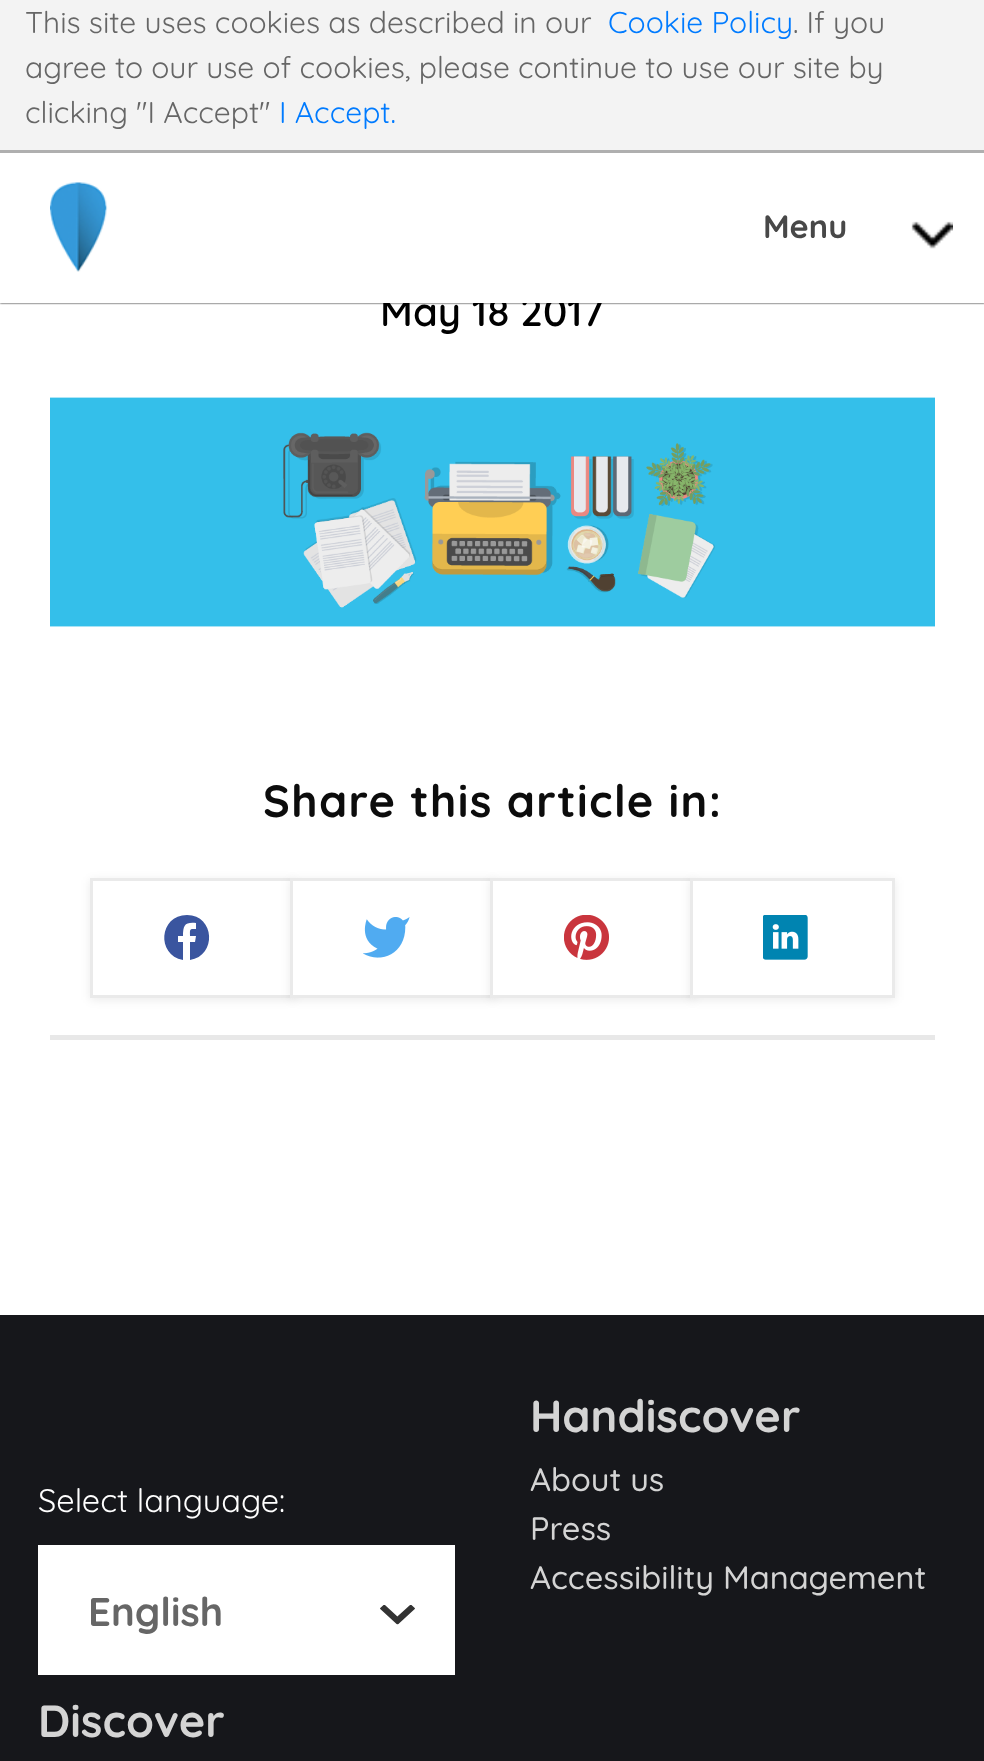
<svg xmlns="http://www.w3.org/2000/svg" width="984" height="1761">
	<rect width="100%" height="100%" fill="#FFFFFF" />
	<rect x="0" y="0" width="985" height="303" fill="#000000" filter="blur(1px)" />
	<text x="380" y="326" font-family="Quicksand" font-size="40" font-weight="600" fill="#000000">May 18 2017</text>
	<rect x="0" y="153" width="984" height="150" fill="#FFFFFF" />
	<rect x="0" y="0" width="984" height="150" fill="#F3F3F3" />
	<rect x="0" y="150" width="984" height="3" fill="#AFAFAF" />
	<text x="25" y="33" font-family="Quicksand" font-size="30" fill="#666666">This site uses cookies as described in our</text>
	<text x="608" y="33" font-family="Quicksand" font-size="30" fill="#007BFF">Cookie Policy</text>
	<g font-family="Quicksand" font-size="30" fill="#666666">
		<text x="793" y="33">. If you</text>
		<text x="25" y="78">agree to our use of cookies, please continue to use our site by</text>
		<text x="25" y="123">clicking "I Accept"</text>
	</g>
	<text x="279" y="123" font-family="Quicksand" font-size="30" fill="#007BFF">I Accept.</text>
	<image x="50" y="182" width="58" height="90" href="assets/img1.png" />
	<text x="763" y="238" font-family="Quicksand" font-size="32.5" font-weight="700" fill="#484848">Menu</text>
	<image x="911" y="221" width="42" height="28" href="assets/img2.png" />
	<image x="50" y="397" width="885" height="230" href="assets/img3.png" />
	<text x="263" y="817" font-family="Quicksand" font-size="45" font-weight="700" letter-spacing="1.35" fill="#0C0C0C">Share this article in:</text>
	<rect x="90" y="880" width="205" height="120" fill="#000000" fill-opacity="0.08" filter="blur(5px)" />
	<rect x="93" y="881" width="197" height="114" fill="#FFFFFF" />
	<path d="M187 915C159 915 156 955 183 960V942H178V936H183C183 925 185 922 196 923V929C189 929 190 929 190 936H196L195 942H190V960C217 956 215 915 187 915Z" fill="#3A559F" />
	<rect x="91.5" y="879.5" width="202" height="117" fill="none" stroke="#EAEAEA" stroke-width="3" />
	<rect x="290" y="880" width="205" height="120" fill="#000000" fill-opacity="0.08" filter="blur(5px)" />
	<rect x="293" y="881" width="197" height="114" fill="#FFFFFF" />
	<image x="363" y="917" width="47" height="41" href="assets/img4.png" />
	<rect x="291.5" y="879.5" width="202" height="117" fill="none" stroke="#EAEAEA" stroke-width="3" />
	<rect x="490" y="880" width="205" height="120" fill="#000000" fill-opacity="0.08" filter="blur(5px)" />
	<rect x="493" y="881" width="197" height="114" fill="#FFFFFF" />
	<image x="564" y="915" width="45" height="45" href="assets/img5.png" />
	<rect x="491.5" y="879.5" width="202" height="117" fill="none" stroke="#EAEAEA" stroke-width="3" />
	<rect x="690" y="880" width="205" height="120" fill="#000000" fill-opacity="0.08" filter="blur(5px)" />
	<rect x="693" y="881" width="199" height="114" fill="#FFFFFF" />
	<image x="763" y="915" width="45" height="45" href="assets/img6.png" />
	<rect x="691.5" y="879.5" width="202" height="117" fill="none" stroke="#EAEAEA" stroke-width="3" />
	<rect x="50" y="1035" width="885" height="5" fill="#E8E8E8" />
	<rect x="0" y="1315" width="984" height="446" fill="#16171B" />
	<text x="38" y="1512" font-family="Quicksand" font-size="32.5" fill="#FFFFFF">Select language:</text>
	<rect x="38" y="1545" width="417" height="130" fill="#FFFFFF" />
	<text x="88" y="1626" font-family="Quicksand" font-size="40" font-weight="700" fill="#666666">English</text>
	<image x="380" y="1605" width="35" height="20" href="assets/img7.png" />
	<text x="530" y="1432" font-family="Quicksand" font-size="45" font-weight="700" fill="#D4D4D4">Handiscover</text>
	<g font-family="Quicksand" font-size="32.5" font-weight="500" fill="#D4D4D4">
		<text x="530" y="1491">About us</text>
		<text x="530" y="1540">Press</text>
		<text x="530" y="1589">Accessibility Management</text>
	</g>
	<text x="38" y="1737" font-family="Quicksand" font-size="45" font-weight="700" fill="#D4D4D4">Discover</text>
</svg>
